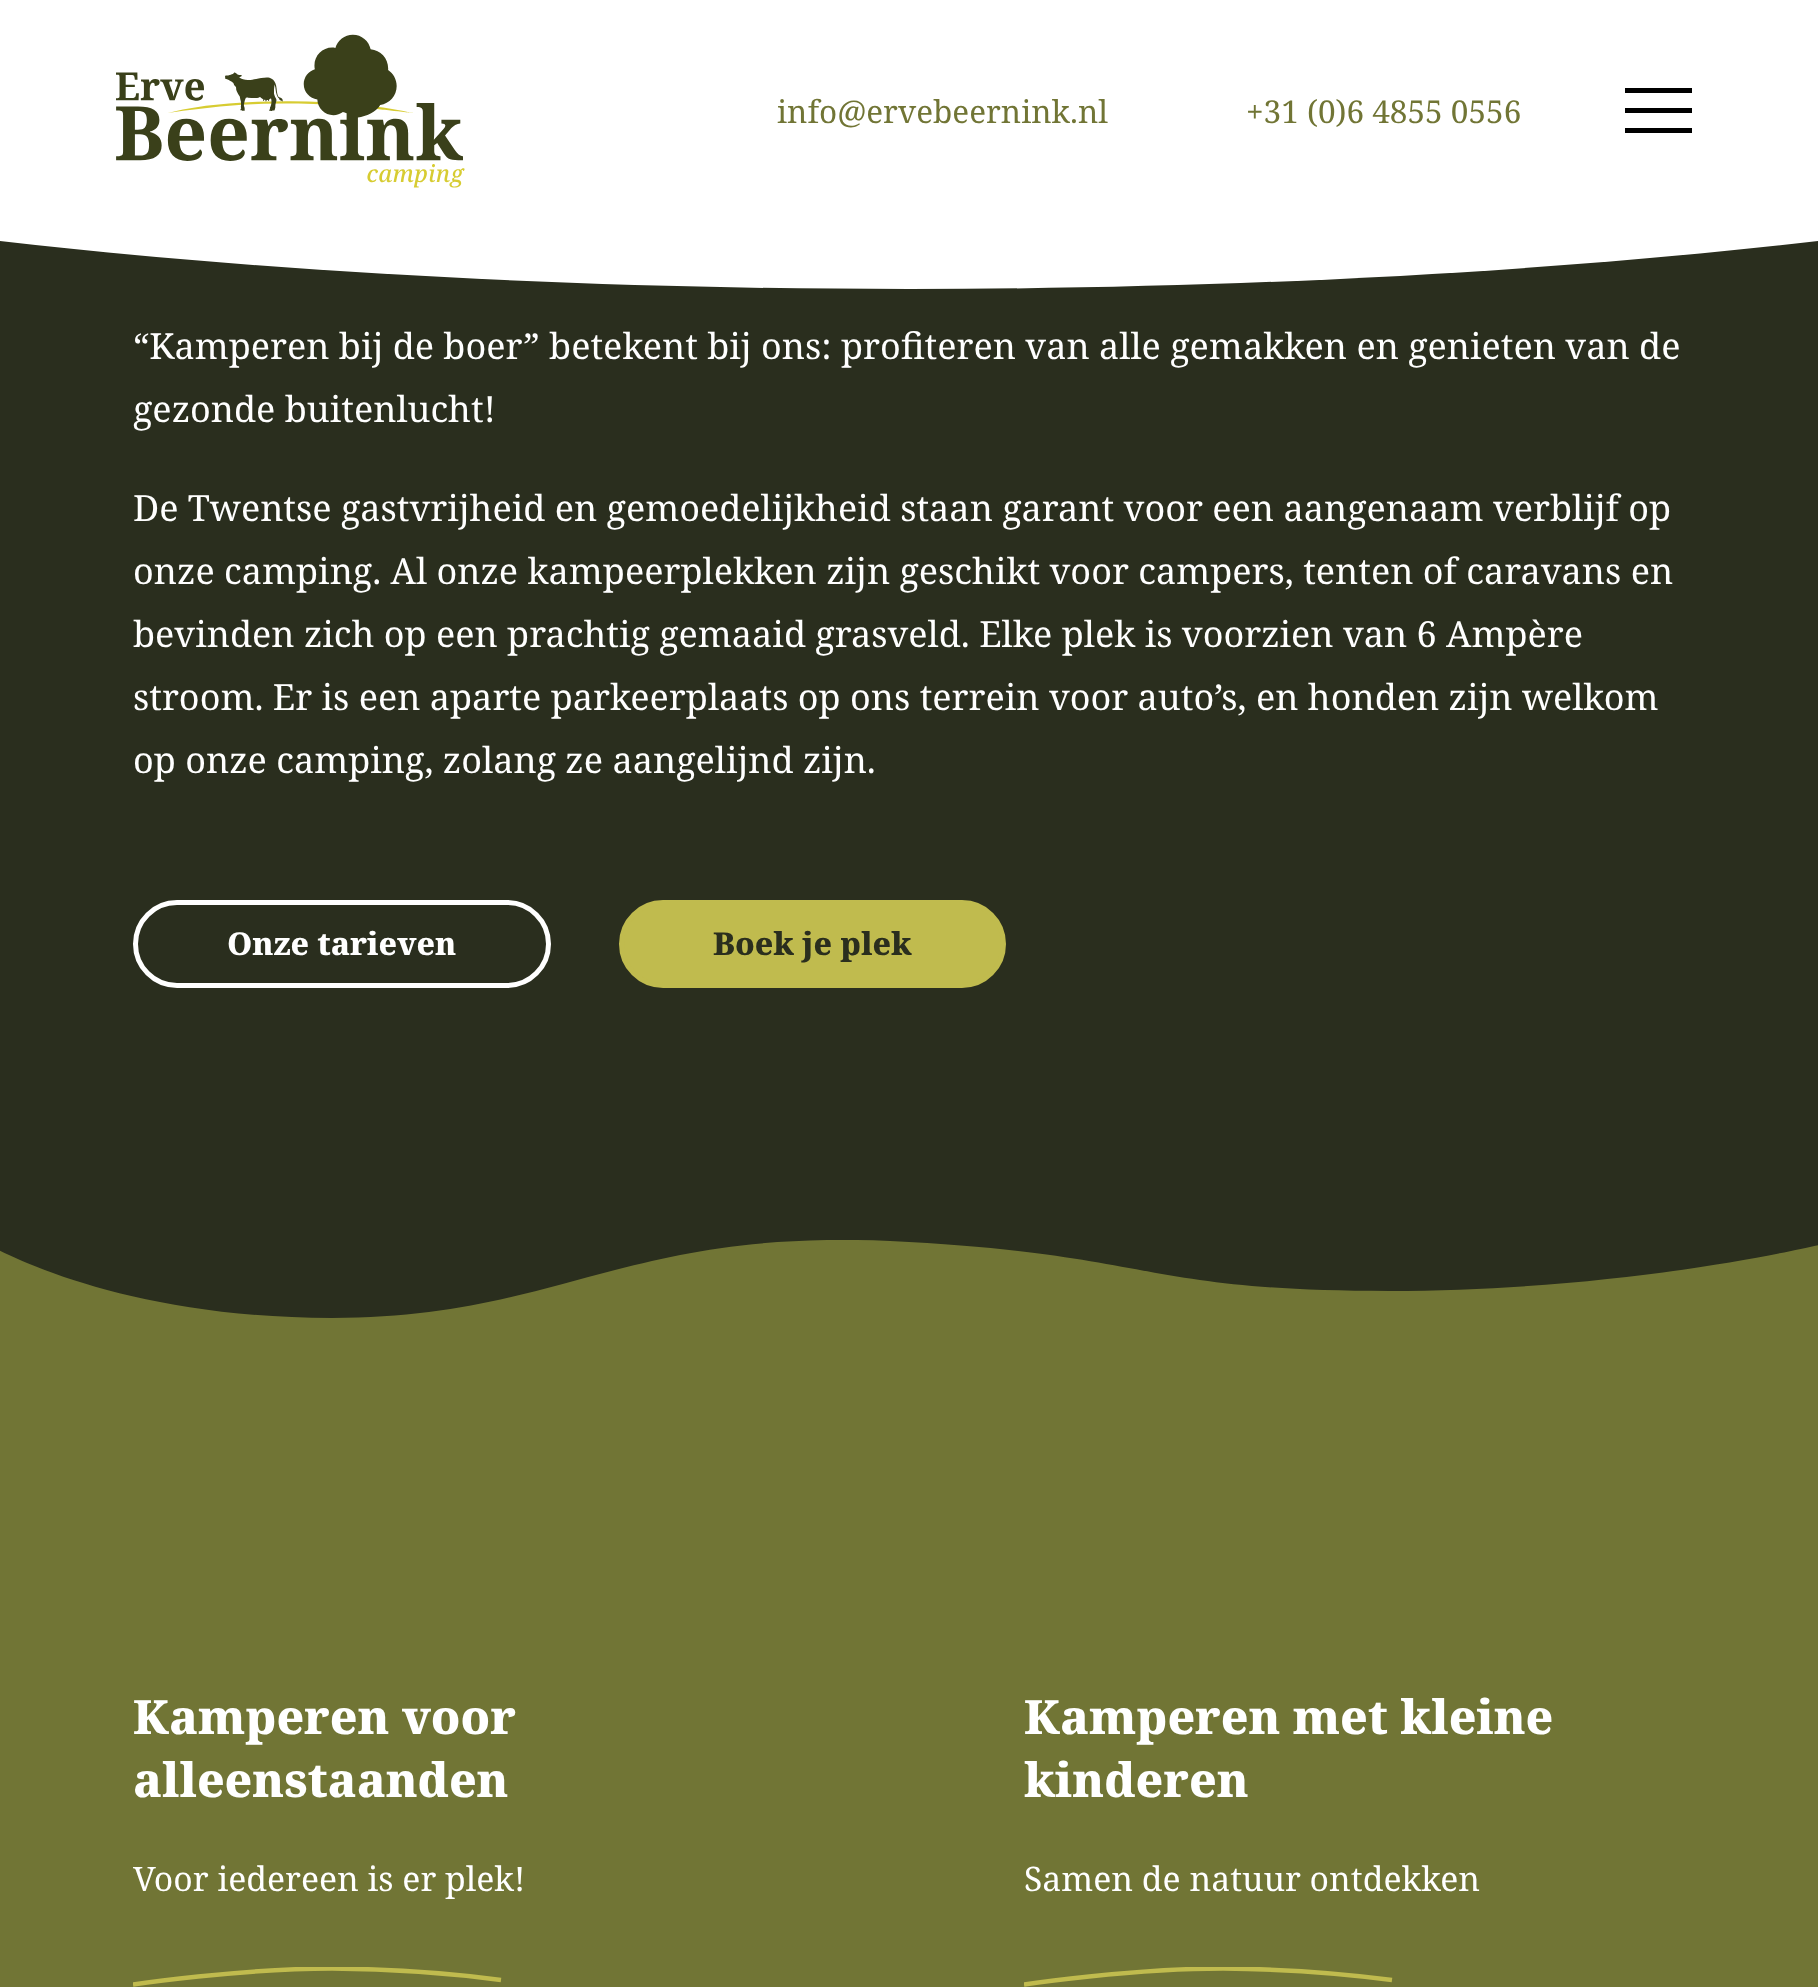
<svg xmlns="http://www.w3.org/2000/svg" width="1818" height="1987">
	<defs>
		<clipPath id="clip1"><rect x="0" y="1240" width="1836" height="108" /></clipPath>
		<clipPath id="clip2"><rect x="133" y="1967" width="369" height="20" /></clipPath>
		<clipPath id="clip3"><rect x="1024" y="1967" width="369" height="20" /></clipPath>
	</defs>
	<rect width="100%" height="100%" fill="#2A2E1E" />
	<path d="M0 0H1818V241C1558 271 1245 289 909 289C573 289 260 271 0 241Z" fill="#FFFFFF" />
	<image x="116" y="34" width="349" height="154" href="assets/img1.png" />
	<g font-family="Noto Serif" font-size="31.5" fill="#717535">
		<text x="777" y="123">info@ervebeernink.nl</text>
		<text x="1246" y="123">+31 (0)6 4855 0556</text>
	</g>
	<rect x="1625" y="88" width="67" height="5" fill="#000000" />
	<rect x="1625" y="108" width="67" height="5" fill="#000000" />
	<rect x="1625" y="128" width="67" height="5" fill="#000000" />
	<g font-family="Noto Serif" font-size="36" fill="#FFFFFF">
		<text x="133" y="359">“Kamperen bij de boer” betekent bij ons: profiteren van alle gemakken en genieten van de</text>
		<text x="133" y="422">gezonde buitenlucht!</text>
		<text x="133" y="521">De Twentse gastvrijheid en gemoedelijkheid staan garant voor een aangenaam verblijf op</text>
		<text x="133" y="584">onze camping. Al onze kampeerplekken zijn geschikt voor campers, tenten of caravans en</text>
		<text x="133" y="647">bevinden zich op een prachtig gemaaid grasveld. Elke plek is voorzien van 6 Ampère</text>
		<text x="133" y="710">stroom. Er is een aparte parkeerplaats op ons terrein voor auto’s, en honden zijn welkom</text>
		<text x="133" y="773">op onze camping, zolang ze aangelijnd zijn.</text>
	</g>
	<rect x="135.5" y="902.5" width="413" height="83" rx="41.5" fill="none" stroke="#FFFFFF" stroke-width="5" />
	<text x="227" y="955" font-family="Noto Serif" font-size="31.5" font-weight="800" fill="#FFFFFF">Onze tarieven</text>
	<rect x="621.5" y="902.5" width="382" height="83" rx="41.5" fill="#C0BB4E" stroke="#C0BB4E" stroke-width="5" />
	<text x="713" y="955" font-family="Noto Serif" font-size="31.5" font-weight="800" fill="#2A2E1E">Boek je plek</text>
	<rect x="0" y="1348" width="1818" height="639" fill="#717535" />
	<g clip-path="url(#clip1)">
		<path d="M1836 1349H-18V1241C-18 1241 105 1318 332 1318C559 1318 623 1229 890 1241C1156 1254 1137 1291 1389 1291C1641 1291 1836 1241 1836 1241Z" fill="#717535" />
	</g>
	<g font-family="Noto Serif" font-size="47.25" font-weight="800" fill="#FFFFFF">
		<text x="133" y="1734">Kamperen voor</text>
		<text x="133" y="1797">alleenstaanden</text>
	</g>
	<text x="133" y="1891" font-family="Noto Serif" font-size="33.75" fill="#FFFFFF">Voor iedereen is er plek!</text>
	<g clip-path="url(#clip2)">
		<path d="M133 1984.5C133 1984.5 240.5 1968.5 332 1968.5C388.5 1969 445 1972.5 501 1980" fill="none" stroke="#C0BB4E" stroke-width="4.5" />
	</g>
	<g font-family="Noto Serif" font-size="47.25" font-weight="800" fill="#FFFFFF">
		<text x="1024" y="1734">Kamperen met kleine</text>
		<text x="1024" y="1797">kinderen</text>
	</g>
	<text x="1024" y="1891" font-family="Noto Serif" font-size="33.75" fill="#FFFFFF">Samen de natuur ontdekken</text>
	<g clip-path="url(#clip3)">
		<path d="M1024 1984.5C1024 1984.5 1131.5 1968.5 1223 1968.5C1279.5 1969 1336 1972.5 1392 1980" fill="none" stroke="#C0BB4E" stroke-width="4.5" />
	</g>
</svg>
